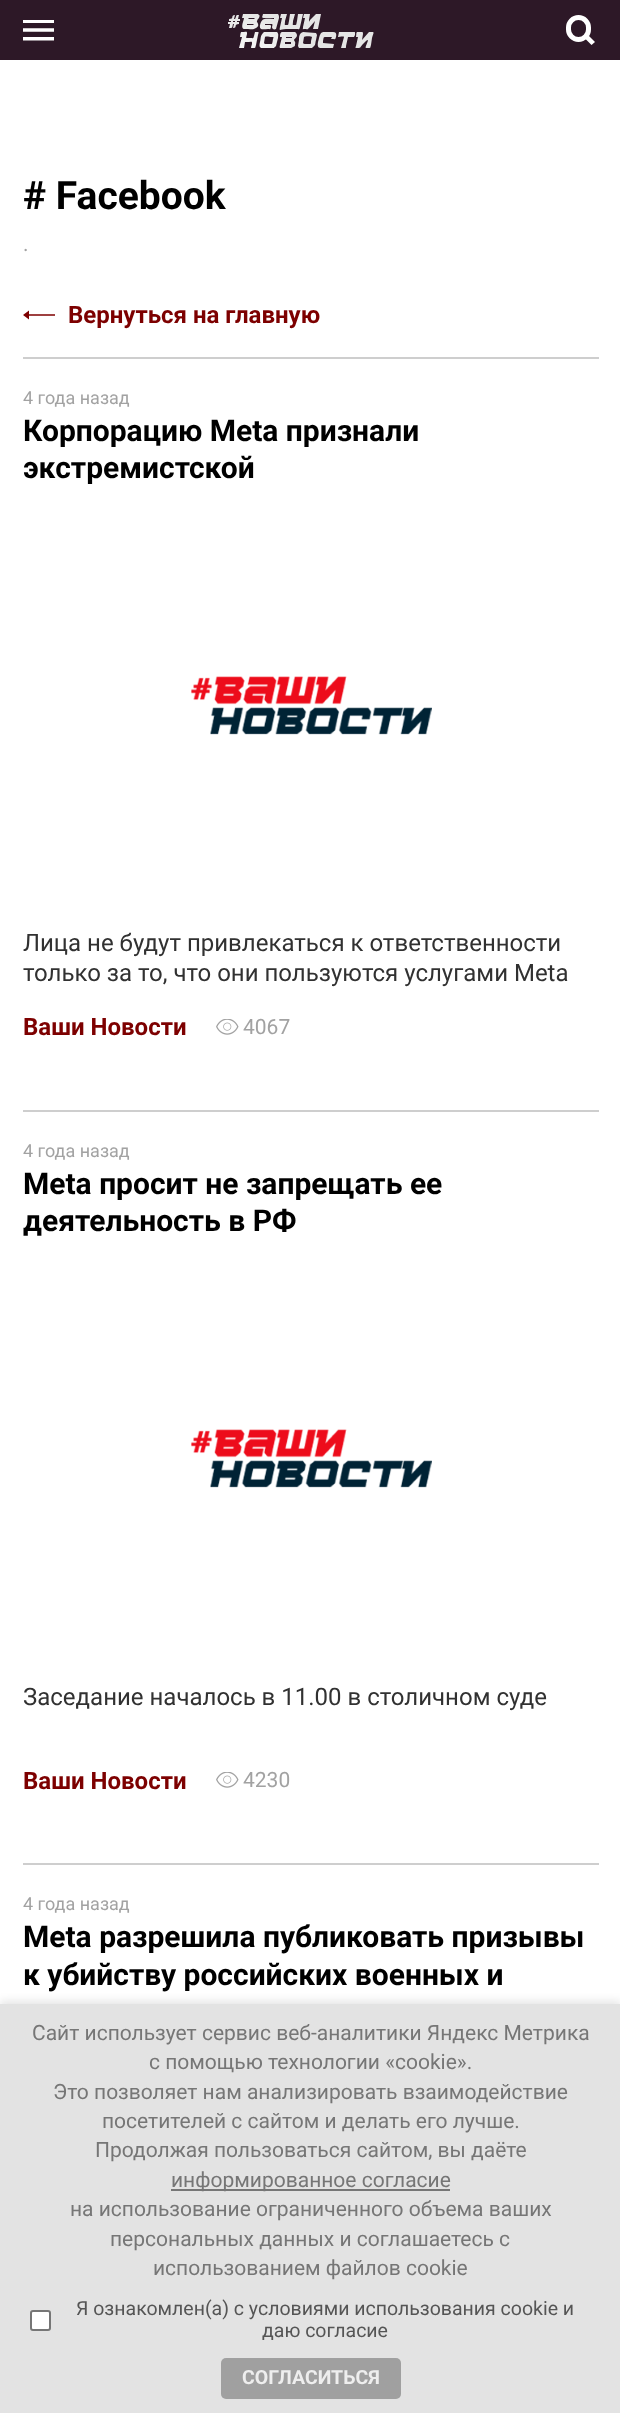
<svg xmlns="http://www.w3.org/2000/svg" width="620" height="2413">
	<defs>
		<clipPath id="clip1"><rect x="228" y="14" width="146" height="34" /></clipPath>
		<radialGradient id="g1" gradientUnits="userSpaceOnUse" cx="245" cy="65" r="53"><stop offset="0" stop-color="#FFFFFF" /><stop offset="1" stop-color="#E5E5E5" /></radialGradient>
	</defs>
	<rect width="100%" height="100%" fill="#FFFFFF" />
	<rect x="0" y="0" width="620" height="60" fill="#2D1827" />
	<image x="23" y="20" width="31" height="21" href="assets/img1.png" />
	<g clip-path="url(#clip1)">
		<path d="M303 14H298L297 21C296 25 297 25 294 25C292 25 293 25 293 21L295 14H290L289 21C288 25 289 25 286 25C284 25 285 25 285 21L287 14H281L280 18H282L280 27C279 32 280 29 286 29H296C300 29 299 30 300 27ZM263 14H278C279 16 279 15 279 18L276 29C274 30 272 29 272 27C272 27 273 24 272 24H265V25H269C271 25 271 25 271 27C270 30 271 29 268 29C264 29 259 31 260 25C262 17 266 19 274 19V18H265C261 18 262 18 263 14ZM243 14H258C260 16 260 15 259 18C258 23 260 14 257 21C256 22 261 25 256 28C253 30 251 29 248 29H244C240 28 244 20 244 18H242ZM237 15C236 15 236 18 235 19H234L235 15C230 15 235 19 229 19V21H231V22H228V24H230L229 28C233 28 232 28 233 24H234L233 28C238 28 233 24 239 24V22H237V21H240V19H238L239 15ZM316 14H321L318 29H313L315 21L309 28C307 30 308 29 305 29C302 29 303 30 303 27L305 18H303L304 14H310L309 20C309 22 309 22 310 20ZM249 18L248 19H254L255 18ZM233 21V22H235V21ZM247 24V25H253L254 24ZM255 32C259 32 259 31 258 35L256 45C255 48 256 48 253 48C250 48 251 48 252 44C252 41 252 42 249 42H245L244 48H239L242 37H240C241 32 240 32 243 32C247 32 247 31 247 34C246 39 245 38 250 38C254 38 253 39 254 36ZM339 32H352C356 32 355 32 355 35L354 37H348L346 46C346 49 346 48 342 48H341L344 37C344 36 339 37 338 37ZM282 32H295C300 36 294 39 294 40C294 41 296 42 295 44C295 46 295 46 293 47C291 49 287 48 284 48C280 48 279 49 280 45L282 37H280C280 36 280 32 282 32ZM369 32C375 32 374 31 372 38L371 45C370 48 371 48 368 48H366C364 48 371 37 366 41L363 44C360 47 361 48 358 48C355 48 355 48 356 46L358 37H356C357 32 355 32 360 32C363 32 363 32 363 34L362 40ZM264 32H277C279 34 278 36 278 38L276 46L275 47C273 49 273 48 269 48C262 48 258 50 260 42C261 39 260 36 263 33ZM323 32H331C335 32 337 32 336 37C335 40 336 39 331 39L332 37H329C323 37 324 36 323 41V43L334 44L333 48H326C319 48 317 49 318 42C319 39 319 36 321 33ZM303 32L316 33L317 35L316 40C315 43 316 45 313 47L312 48H299L298 46L299 40C299 37 299 35 301 33ZM264 43C264 44 266 44 267 44C273 44 272 45 273 39C274 37 274 37 271 37C270 37 266 36 265 37ZM286 37V38H292V37ZM303 43C303 44 306 44 307 44C311 44 311 45 311 41L312 37C312 36 304 36 304 37ZM285 42V44H291V42Z" fill="url(#g1)" fill-rule="evenodd" />
	</g>
	<path d="M587.5 34.5L595 42L591.5 45L584 37.5Z" fill="#FFFFFF" />
	<rect x="568.5" y="17.5" width="20" height="22" rx="10" fill="none" stroke="#FFFFFF" stroke-width="5" />
	<rect x="23" y="357" width="576" height="2" fill="#CECECE" />
	<text x="23" y="209" font-family="Roboto" font-size="39" font-weight="700" fill="#000000"># Facebook</text>
	<text x="23" y="251" font-family="Roboto" font-size="21" fill="#A2A2A2">.</text>
	<rect x="25" y="314" width="30" height="2" fill="#9E4040" />
	<path d="M23 315L29 310.5V319.5Z" fill="#7D0000" />
	<text x="68" y="323" font-family="Roboto" font-size="24" font-weight="700" fill="#7D0000">Вернуться на главную</text>
	<rect x="23" y="1110" width="576" height="2" fill="#CECECE" />
	<text x="23" y="404" font-family="Roboto" font-size="18" fill="#A2A2A2">4 года назад</text>
	<g font-family="Roboto" font-size="30" font-weight="700" fill="#000000">
		<text x="23" y="441">Корпорацию Meta признали</text>
		<text x="23" y="478">экстремистской</text>
	</g>
	<image x="191" y="676" width="241" height="59" href="assets/img2.png" />
	<g font-family="Roboto" font-size="24" fill="#313131">
		<text x="23" y="951">Лица не будут привлекаться к ответственности</text>
		<text x="23" y="981">только за то, что они пользуются услугами Meta</text>
	</g>
	<text x="23" y="1035" font-family="Roboto" font-size="24" font-weight="700" fill="#7D0000">Ваши Новости</text>
	<image x="216" y="1019" width="23" height="16" href="assets/img3.png" />
	<text x="243" y="1034" font-family="Roboto" font-size="21" fill="#A2A2A2">4067</text>
	<rect x="23" y="1863" width="576" height="2" fill="#CECECE" />
	<text x="23" y="1157" font-family="Roboto" font-size="18" fill="#A2A2A2">4 года назад</text>
	<g font-family="Roboto" font-size="30" font-weight="700" fill="#000000">
		<text x="23" y="1194">Meta просит не запрещать ее</text>
		<text x="23" y="1231">деятельность в РФ</text>
	</g>
	<image x="191" y="1429" width="241" height="59" href="assets/img2.png" />
	<text x="23" y="1705" font-family="Roboto" font-size="24" fill="#313131">Заседание началось в 11.00 в столичном суде</text>
	<text x="23" y="1789" font-family="Roboto" font-size="24" font-weight="700" fill="#7D0000">Ваши Новости</text>
	<image x="216" y="1772" width="23" height="16" href="assets/img3.png" />
	<text x="243" y="1787" font-family="Roboto" font-size="21" fill="#A2A2A2">4230</text>
	<text x="23" y="1910" font-family="Roboto" font-size="18" fill="#A2A2A2">4 года назад</text>
	<g font-family="Roboto" font-size="30" font-weight="700" fill="#000000">
		<text x="23" y="1947">Meta разрешила публиковать призывы</text>
		<text x="23" y="1985">к убийству российских военных и</text>
	</g>
	<rect x="0" y="2001" width="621" height="410" fill="#000000" fill-opacity="0.1" filter="blur(4px)" />
	<rect x="0" y="2004" width="620" height="409" fill="#E3E3E3" />
	<g font-family="Roboto" font-size="21" fill="#767676">
		<text x="32" y="2040">Сайт использует сервис веб-аналитики Яндекс Метрика</text>
		<text x="149" y="2069">с помощью технологии «cookie».</text>
		<text x="53" y="2099">Это позволяет нам анализировать взаимодействие</text>
		<text x="102" y="2128">посетителей с сайтом и делать его лучше.</text>
		<text x="95" y="2157">Продолжая пользоваться сайтом, вы даёте</text>
	</g>
	<rect x="171" y="2189" width="279" height="2" fill="#767676" />
	<g font-family="Roboto" font-size="21" fill="#767676">
		<text x="171" y="2187">информированное согласие</text>
		<text x="70" y="2216">на использование ограниченного объема ваших</text>
		<text x="110" y="2246">персональных данных и соглашаетесь с</text>
		<text x="153" y="2275">использованием файлов cookie</text>
	</g>
	<rect x="31" y="2311" width="19" height="19" rx="2" fill="#FFFFFF" stroke="#767676" stroke-width="2" />
	<g font-family="Roboto" font-size="19.5" fill="#555555">
		<text x="76" y="2315">Я ознакомлен(а) с условиями использования cookie и</text>
		<text x="262" y="2337">даю согласие</text>
	</g>
	<rect x="221" y="2358" width="180" height="41" rx="5" fill="#A0A0A0" />
	<text x="242" y="2384" font-family="Roboto" font-size="19.5" font-weight="700" fill="#EEEEEE">СОГЛАСИТЬСЯ</text>
</svg>
